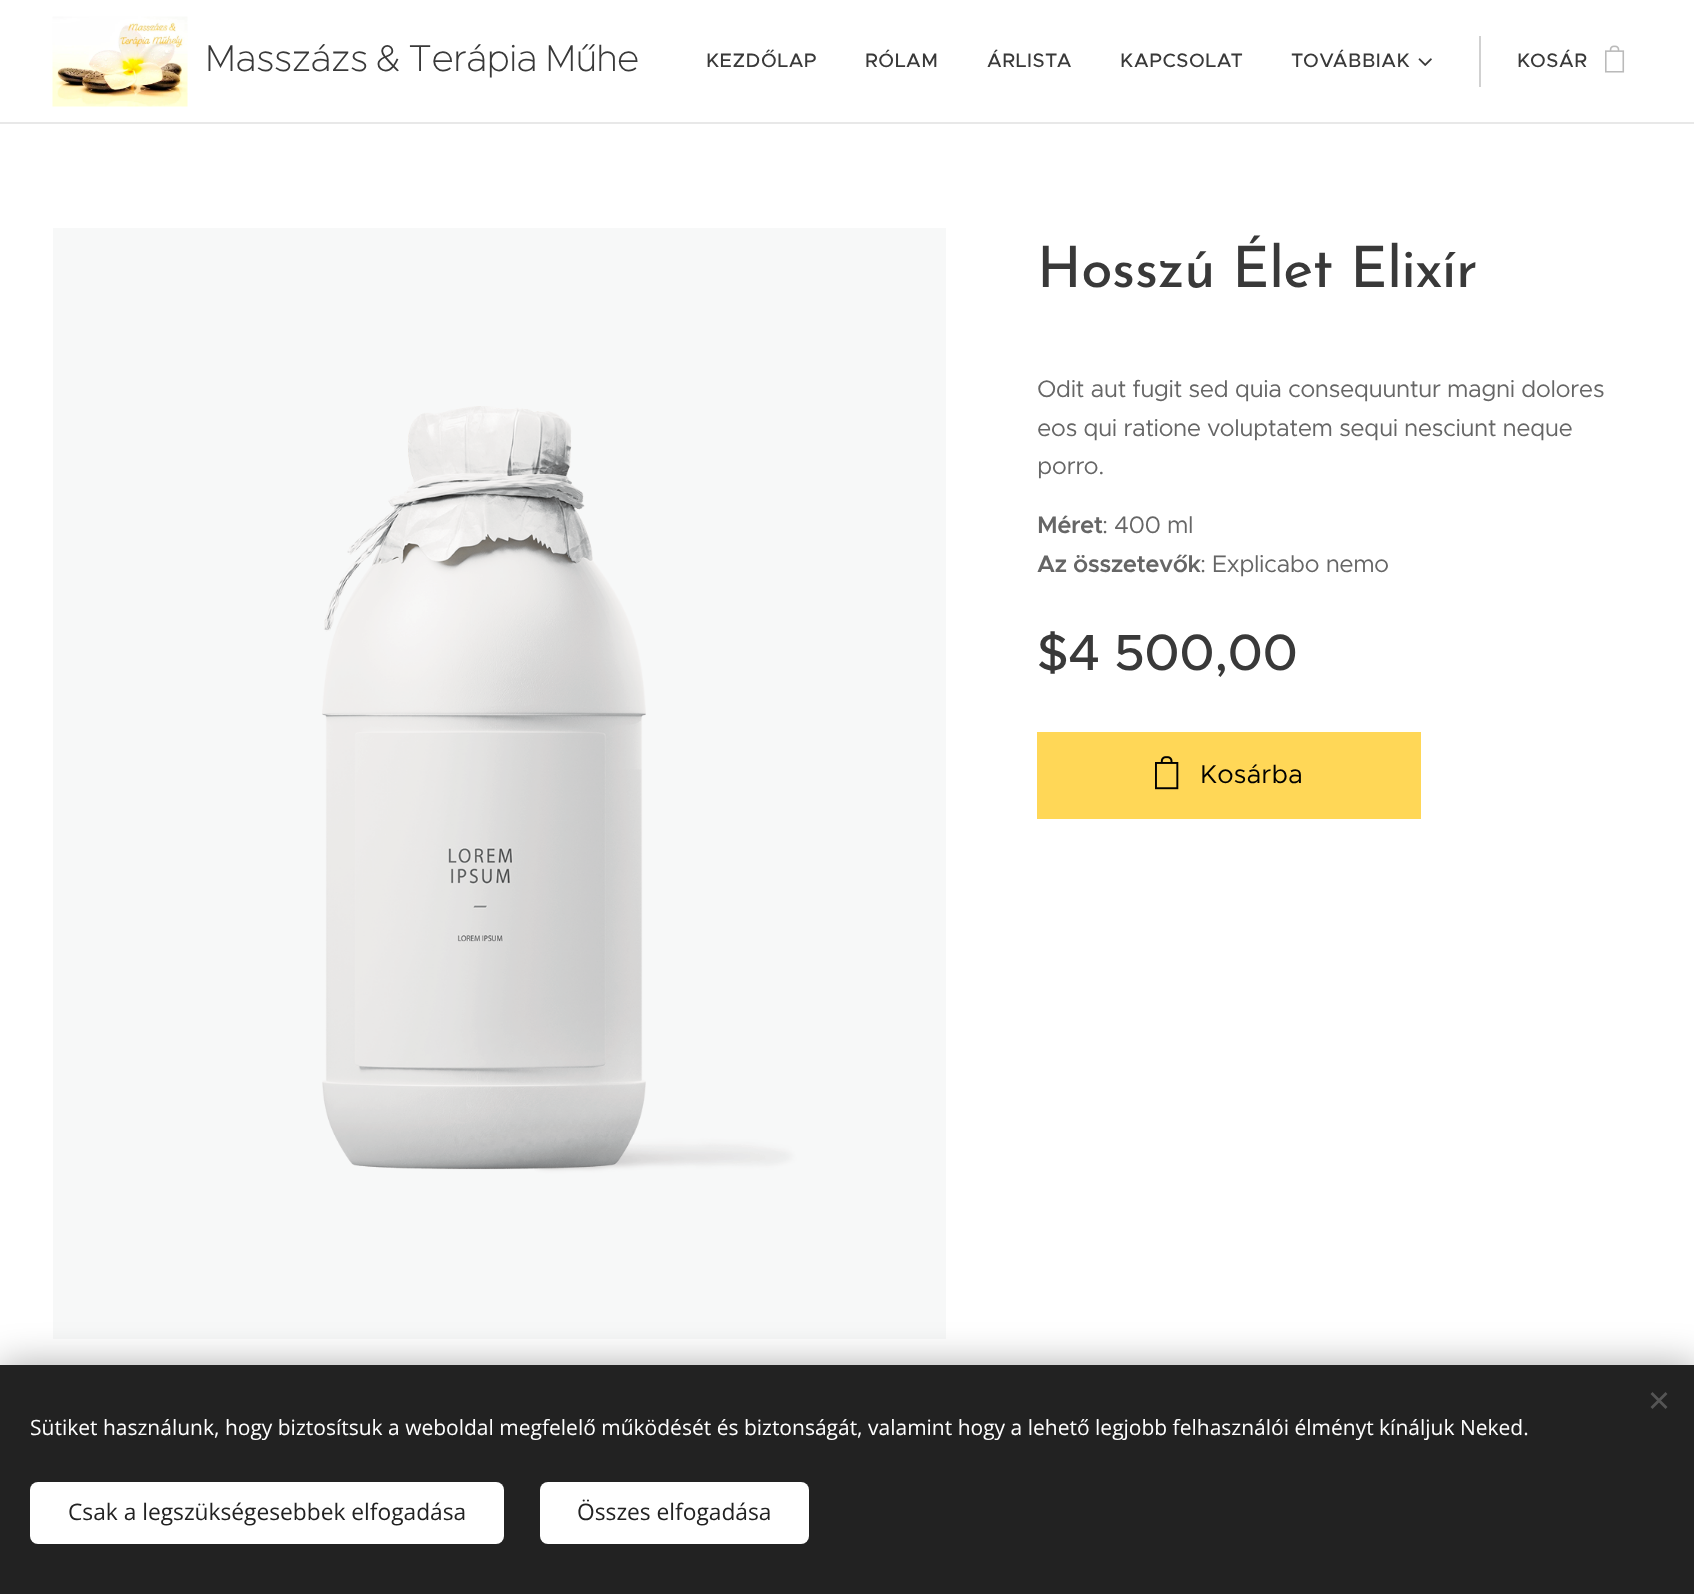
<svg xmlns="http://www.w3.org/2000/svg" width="1694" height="1594">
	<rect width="100%" height="100%" fill="#FFFFFF" />
	<image x="52" y="16" width="136" height="91" href="assets/img1.png" />
	<text x="205" y="71" word-spacing="-2" font-family="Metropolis" font-size="37.5" font-weight="200" letter-spacing="-0.5" fill="#393939">Masszázs &amp; Terápia Műhe</text>
	<g font-family="Metropolis" font-size="19.5" font-weight="500" letter-spacing="0.5" fill="#393939">
		<text x="706" y="67">KEZDŐLAP</text>
		<text x="865" y="67">RÓLAM</text>
		<text x="987" y="67">ÁRLISTA</text>
		<text x="1120" y="67">KAPCSOLAT</text>
		<text x="1291" y="67">TOVÁBBIAK</text>
	</g>
	<image x="1418" y="58" width="14" height="8" href="assets/img2.png" />
	<rect x="1479" y="36" width="2" height="51" fill="#D1D1D1" />
	<text x="1517" y="67" font-family="Metropolis" font-size="19.5" font-weight="500" letter-spacing="0.5" fill="#393939">KOSÁR</text>
	<image x="1605" y="45" width="20" height="28" href="assets/img3.png" />
	<rect x="0" y="122" width="1694" height="2" fill="#E8E8E8" />
	<image x="53" y="228" width="893" height="1111" href="assets/img4.png" />
	<text x="1037" y="287" font-family="Josefin Sans" font-size="57" letter-spacing="-0.5" fill="#393939">Hosszú Élet Elixír</text>
	<g font-family="Metropolis" font-size="24" letter-spacing="-0.5" fill="#666666">
		<text x="1037" y="397">Odit aut fugit sed quia consequuntur magni dolores</text>
		<text x="1037" y="436">eos qui ratione voluptatem sequi nesciunt neque</text>
		<text x="1037" y="474">porro.</text>
	</g>
	<text x="1037" y="533" font-family="Metropolis" font-size="24" font-weight="600" letter-spacing="-0.5" fill="#666666">Méret</text>
	<text x="1102" y="533" font-family="Metropolis" font-size="24" letter-spacing="-0.5" fill="#666666">: 400 ml</text>
	<text x="1037" y="572" font-family="Metropolis" font-size="24" font-weight="600" letter-spacing="-0.5" fill="#666666">Az összetevők</text>
	<text x="1200" y="572" font-family="Metropolis" font-size="24" letter-spacing="-0.5" fill="#666666">: Explicabo nemo</text>
	<text x="1037" y="670" font-family="Metropolis" font-size="51" font-weight="500" letter-spacing="-0.5" fill="#393939">$4 500,00</text>
	<rect x="1037" y="732" width="384" height="87" fill="#FFD757" />
	<image x="1155" y="756" width="24" height="34" href="assets/img5.png" />
	<text x="1200" y="783" font-family="Metropolis" font-size="26" fill="#000000">Kosárba</text>
	<rect x="0" y="1365" width="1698" height="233" fill="#000000" fill-opacity="0.33" filter="blur(19px)" />
	<rect x="0" y="1365" width="1694" height="229" fill="#222222" />
	<path d="M1650.5 1407L1665.5 1392L1667.5 1394L1652.5 1409Z" fill="#555555" />
	<path d="M1652.5 1392L1667.5 1407L1665.5 1409L1650.5 1394Z" fill="#555555" />
	<text x="30" y="1435" font-family="Open Sans" font-size="21" fill="#FFFFFF">Sütiket használunk, hogy biztosítsuk a weboldal megfelelő működését és biztonságát, valamint hogy a lehető legjobb felhasználói élményt kínáljuk Neked.</text>
	<rect x="30" y="1482" width="474" height="62" rx="8" fill="#FFFFFF" />
	<text x="68" y="1520" font-family="Open Sans" font-size="22.75" fill="#222222">Csak a legszükségesebbek elfogadása</text>
	<rect x="540" y="1482" width="269" height="62" rx="8" fill="#FFFFFF" />
	<text x="577" y="1520" font-family="Open Sans" font-size="22.75" fill="#222222">Összes elfogadása</text>
</svg>
